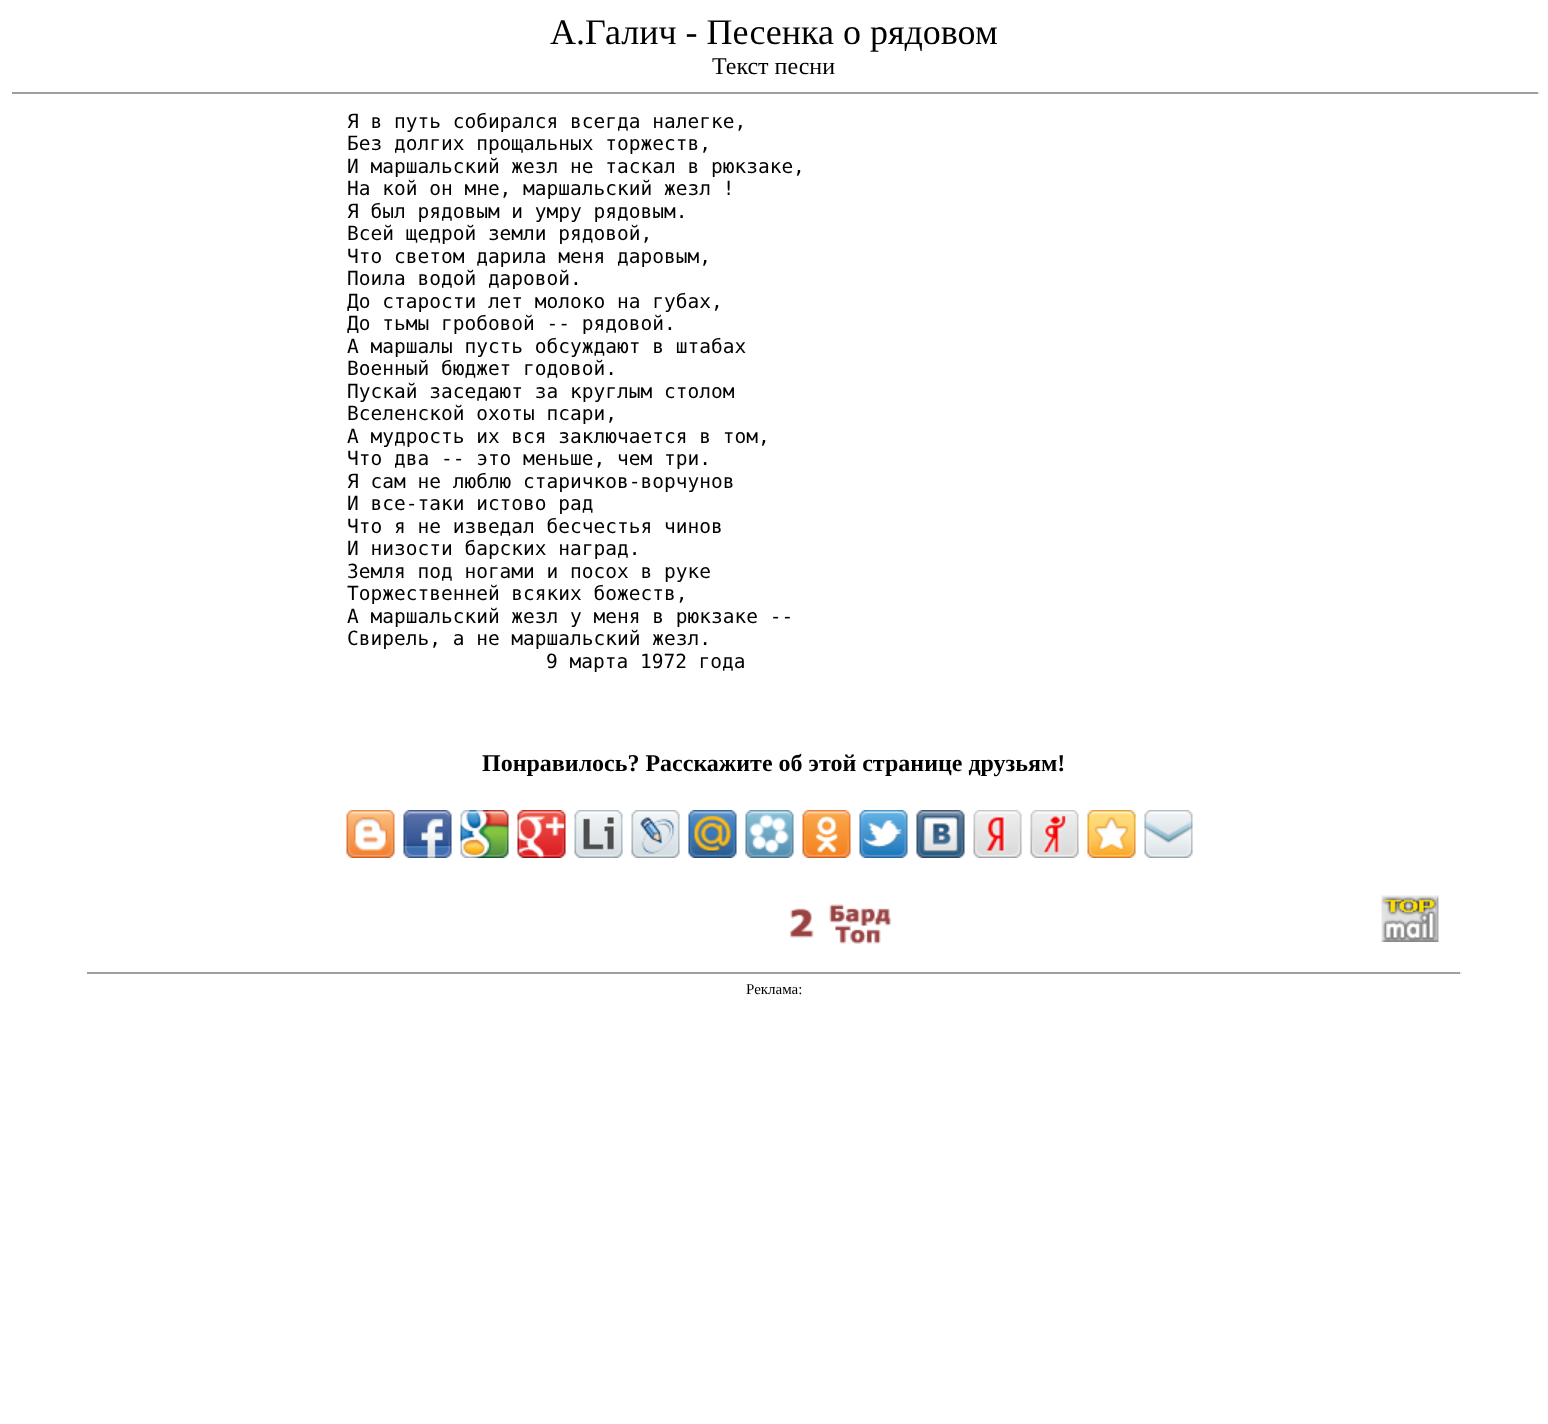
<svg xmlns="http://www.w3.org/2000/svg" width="1548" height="1424">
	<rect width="100%" height="100%" fill="#FFFFFF" />
	<text x="550" y="44" font-family="Liberation Serif" font-size="36" fill="#000000">А.Галич - Песенка о рядовом</text>
	<text x="712" y="74" font-family="Liberation Serif" font-size="24" fill="#000000">Текст песни</text>
	<rect x="12" y="92" width="1527" height="2" fill="#9F9F9F" />
	<rect x="1538" y="92" width="2" height="2" fill="#EEEEEE" />
	<g font-family="DejaVu Sans Mono" font-size="19.5" fill="#000000">
		<text x="347" y="128">Я в путь собирался всегда налегке,</text>
		<text x="347" y="150">Без долгих прощальных торжеств,</text>
		<text x="347" y="173">И маршальский жезл не таскал в рюкзаке,</text>
		<text x="347" y="195">На кой он мне, маршальский жезл !</text>
		<text x="347" y="218">Я был рядовым и умру рядовым.</text>
		<text x="347" y="240">Всей щедрой земли рядовой,</text>
		<text x="347" y="263">Что светом дарила меня даровым,</text>
		<text x="347" y="285">Поила водой даровой.</text>
		<text x="347" y="308">До старости лет молоко на губах,</text>
		<text x="347" y="330">До тьмы гробовой -- рядовой.</text>
		<text x="347" y="353">А маршалы пусть обсуждают в штабах</text>
		<text x="347" y="375">Военный бюджет годовой.</text>
		<text x="347" y="398">Пускай заседают за круглым столом</text>
		<text x="347" y="420">Вселенской охоты псари,</text>
		<text x="347" y="443">А мудрость их вся заключается в том,</text>
		<text x="347" y="465">Что два -- это меньше, чем три.</text>
		<text x="347" y="488">Я сам не люблю старичков-ворчунов</text>
		<text x="347" y="510">И все-таки истово рад</text>
		<text x="347" y="533">Что я не изведал бесчестья чинов</text>
		<text x="347" y="555">И низости барских наград.</text>
		<text x="347" y="578">Земля под ногами и посох в руке</text>
		<text x="347" y="600">Торжественней всяких божеств,</text>
		<text x="347" y="623">А маршальский жезл у меня в рюкзаке --</text>
		<text x="347" y="645">Свирель, а не маршальский жезл.</text>
		<text x="546" y="668">9 марта 1972 года</text>
	</g>
	<text x="482" y="771" font-family="Liberation Serif" font-size="24" font-weight="700" fill="#000000">Понравилось? Расскажите об этой странице друзьям!</text>
	<image x="346" y="810" width="49" height="48" href="assets/img1.png" />
	<image x="403" y="810" width="49" height="48" href="assets/img2.png" />
	<image x="460" y="810" width="49" height="48" href="assets/img3.png" />
	<image x="517" y="810" width="49" height="48" href="assets/img4.png" />
	<image x="574" y="810" width="49" height="48" href="assets/img5.png" />
	<image x="631" y="810" width="49" height="48" href="assets/img6.png" />
	<image x="688" y="810" width="49" height="48" href="assets/img7.png" />
	<image x="745" y="810" width="49" height="48" href="assets/img8.png" />
	<image x="802" y="810" width="49" height="48" href="assets/img9.png" />
	<image x="859" y="810" width="49" height="48" href="assets/img10.png" />
	<image x="916" y="810" width="49" height="48" href="assets/img11.png" />
	<image x="973" y="810" width="49" height="48" href="assets/img12.png" />
	<image x="1030" y="810" width="49" height="48" href="assets/img13.png" />
	<image x="1087" y="810" width="49" height="48" href="assets/img14.png" />
	<image x="1144" y="810" width="49" height="48" href="assets/img15.png" />
	<image x="790" y="904" width="102" height="40" href="assets/img16.png" />
	<image x="1381" y="895" width="58" height="47" href="assets/img17.png" />
	<rect x="87" y="972" width="1374" height="2" fill="#9F9F9F" />
	<rect x="1460" y="972" width="2" height="2" fill="#EEEEEE" />
	<text x="746" y="994" font-family="Liberation Serif" font-size="15" fill="#000000">Реклама:</text>
</svg>
